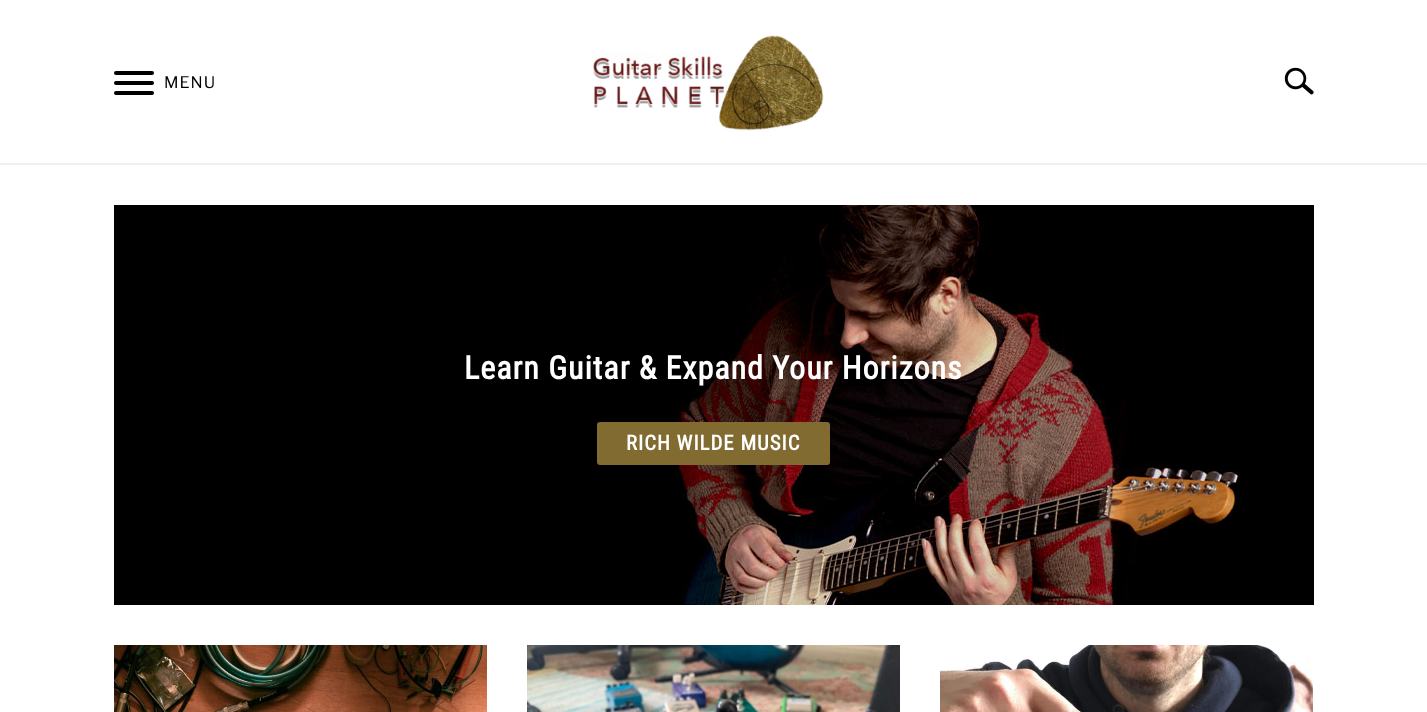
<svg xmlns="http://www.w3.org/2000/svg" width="1427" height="712">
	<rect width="100%" height="100%" fill="#FFFFFF" />
	<rect x="114" y="81" width="40" height="4" rx="2" fill="#000000" />
	<rect x="114" y="71" width="40" height="4" rx="2" fill="#000000" />
	<rect x="114" y="91" width="40" height="4" rx="2" fill="#000000" />
	<text x="164" y="88" font-family="Libre Franklin" font-size="16" letter-spacing="1" fill="#000000">MENU</text>
	<image x="593" y="35" width="231" height="96" href="assets/img1.png" />
	<image x="1284" y="67" width="30" height="28" href="assets/img2.png" />
	<rect x="0" y="163" width="1427" height="2" fill="#F0F0F0" />
	<image x="114" y="205" width="1200" height="400" href="assets/img3.png" />
	<text x="464" y="379" font-family="Roboto Condensed" font-size="32" font-weight="700" letter-spacing="1" fill="#FFFFFF">Learn Guitar &amp; Expand Your Horizons</text>
	<rect x="597" y="422" width="233" height="43" rx="3" fill="#826B30" />
	<text x="626" y="450" font-family="Roboto Condensed" font-size="20.75" font-weight="700" letter-spacing="1" fill="#FFFFFF">RICH WILDE MUSIC</text>
	<image x="114" y="645" width="373" height="67" href="assets/img4.png" />
	<image x="527" y="645" width="373" height="67" href="assets/img5.png" />
	<image x="940" y="645" width="373" height="67" href="assets/img6.png" />
</svg>
